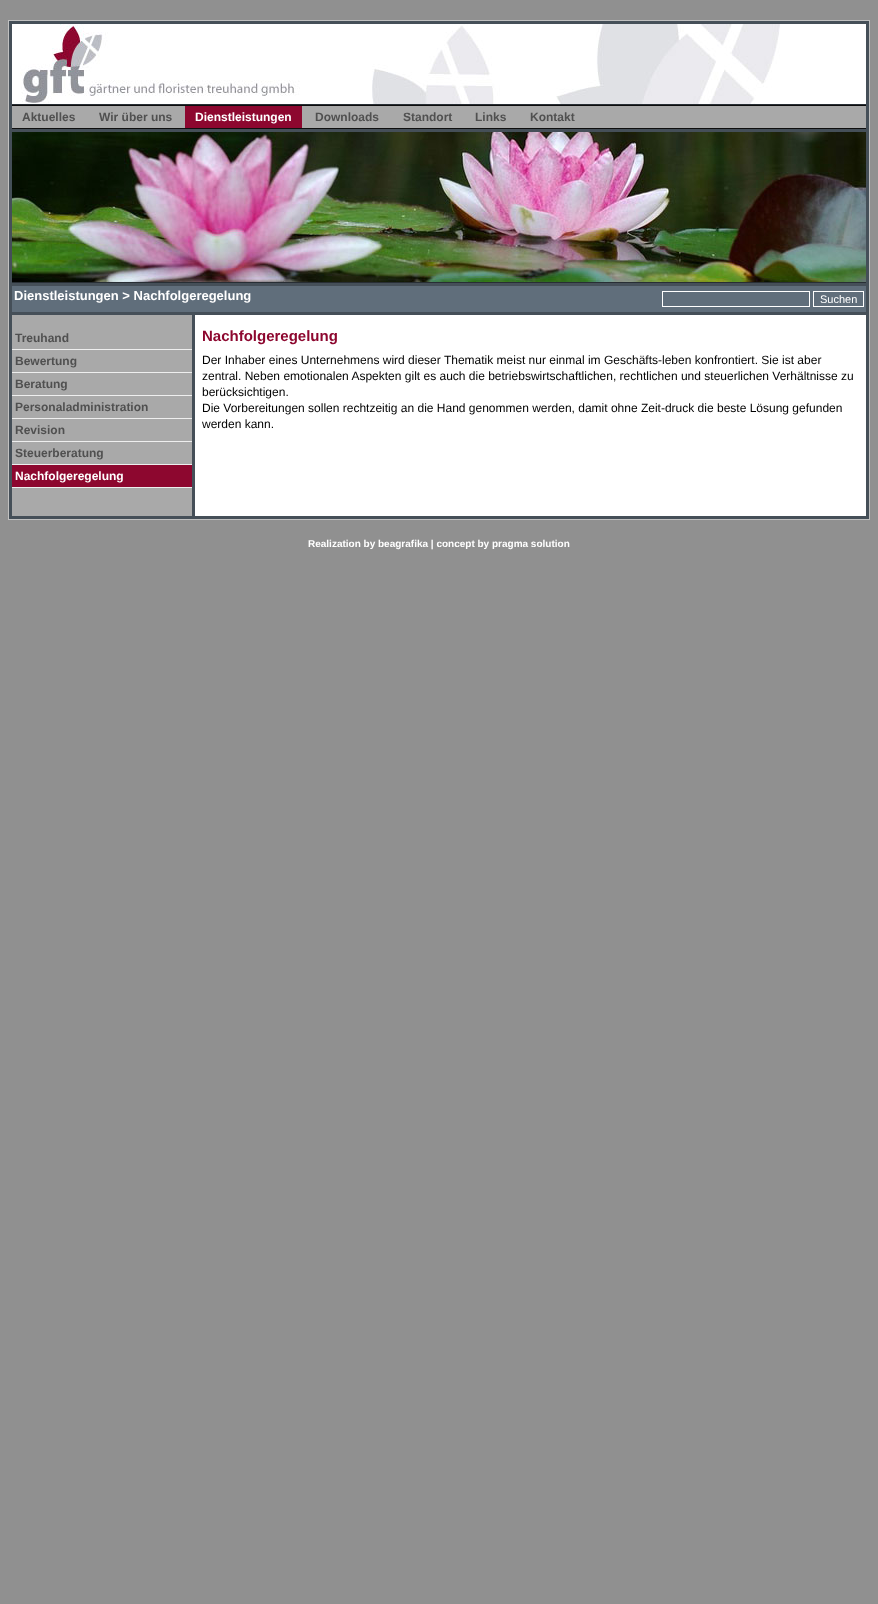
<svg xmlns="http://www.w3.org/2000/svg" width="878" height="1604">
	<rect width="100%" height="100%" fill="#909090" />
	<rect x="8.5" y="20.5" width="861" height="499" fill="#454F58" stroke="#C0C0C0" />
	<image x="12" y="24" width="854" height="80" href="assets/img1.png" />
	<rect x="12" y="104" width="854" height="1" fill="#282E34" />
	<rect x="12" y="106" width="854" height="22" fill="#A9A9A9" />
	<rect x="12" y="105" width="854" height="1" fill="#0C0C0C" />
	<rect x="12" y="128" width="854" height="1" fill="#0F0F0F" />
	<g font-family="Liberation Sans" font-size="12" font-weight="700" fill="#505050">
		<text x="22" y="121">Aktuelles</text>
		<text x="99" y="121">Wir über uns</text>
	</g>
	<rect x="185" y="106" width="117" height="22" fill="#8D072F" />
	<text x="195" y="121" font-family="Liberation Sans" font-size="12" font-weight="700" fill="#FFFFFF">Dienstleistungen</text>
	<g font-family="Liberation Sans" font-size="12" font-weight="700" fill="#505050">
		<text x="315" y="121">Downloads</text>
		<text x="403" y="121">Standort</text>
		<text x="475" y="121">Links</text>
		<text x="530" y="121">Kontakt</text>
	</g>
	<image x="12" y="132" width="854" height="150" href="assets/img2.png" />
	<rect x="12" y="282" width="854" height="1" fill="#282E34" />
	<rect x="12" y="286" width="854" height="26" fill="#606E7B" />
	<text x="14" y="300" font-family="Liberation Sans" font-size="13" font-weight="700" fill="#FFFFFF">Dienstleistungen &gt; Nachfolgeregelung</text>
	<rect x="662.5" y="291.5" width="147" height="15" fill="none" stroke="#FFFFFF" />
	<rect x="813.5" y="291.5" width="50" height="15" fill="none" stroke="#FFFFFF" />
	<text x="820" y="303" font-family="Liberation Sans" font-size="11" fill="#FFFFFF">Suchen</text>
	<rect x="12" y="315" width="180" height="201" fill="#A9A9A9" />
	<rect x="12" y="349" width="180" height="1" fill="#EEEEEE" />
	<text x="15" y="342" font-family="Liberation Sans" font-size="12" font-weight="700" fill="#505050">Treuhand</text>
	<rect x="12" y="372" width="180" height="1" fill="#EEEEEE" />
	<text x="15" y="365" font-family="Liberation Sans" font-size="12" font-weight="700" fill="#505050">Bewertung</text>
	<rect x="12" y="395" width="180" height="1" fill="#EEEEEE" />
	<text x="15" y="388" font-family="Liberation Sans" font-size="12" font-weight="700" fill="#505050">Beratung</text>
	<rect x="12" y="418" width="180" height="1" fill="#EEEEEE" />
	<text x="15" y="411" font-family="Liberation Sans" font-size="12" font-weight="700" fill="#505050">Personaladministration</text>
	<rect x="12" y="441" width="180" height="1" fill="#EEEEEE" />
	<text x="15" y="434" font-family="Liberation Sans" font-size="12" font-weight="700" fill="#505050">Revision</text>
	<rect x="12" y="464" width="180" height="1" fill="#EEEEEE" />
	<text x="15" y="457" font-family="Liberation Sans" font-size="12" font-weight="700" fill="#505050">Steuerberatung</text>
	<rect x="12" y="465" width="180" height="22" fill="#8D072F" />
	<rect x="12" y="487" width="180" height="1" fill="#EEEEEE" />
	<text x="15" y="480" font-family="Liberation Sans" font-size="12" font-weight="700" fill="#FFFFFF">Nachfolgeregelung</text>
	<rect x="195" y="315" width="671" height="201" fill="#FFFFFF" />
	<text x="202" y="341" font-family="Liberation Sans" font-size="15" font-weight="700" fill="#8D072F">Nachfolgeregelung</text>
	<g font-family="Liberation Sans" font-size="12" fill="#000000">
		<text x="202" y="364">Der Inhaber eines Unternehmens wird dieser Thematik meist nur einmal im Geschäfts-leben konfrontiert. Sie ist aber</text>
		<text x="202" y="380">zentral. Neben emotionalen Aspekten gilt es auch die betriebswirtschaftlichen, rechtlichen und steuerlichen Verhältnisse zu</text>
		<text x="202" y="396">berücksichtigen.</text>
		<text x="202" y="412">Die Vorbereitungen sollen rechtzeitig an die Hand genommen werden, damit ohne Zeit-druck die beste Lösung gefunden</text>
		<text x="202" y="428">werden kann.</text>
	</g>
	<text x="308" y="547" font-family="Liberation Sans" font-size="10" font-weight="700" fill="#FFFFFF">Realization by beagrafika | concept by pragma solution</text>
</svg>
